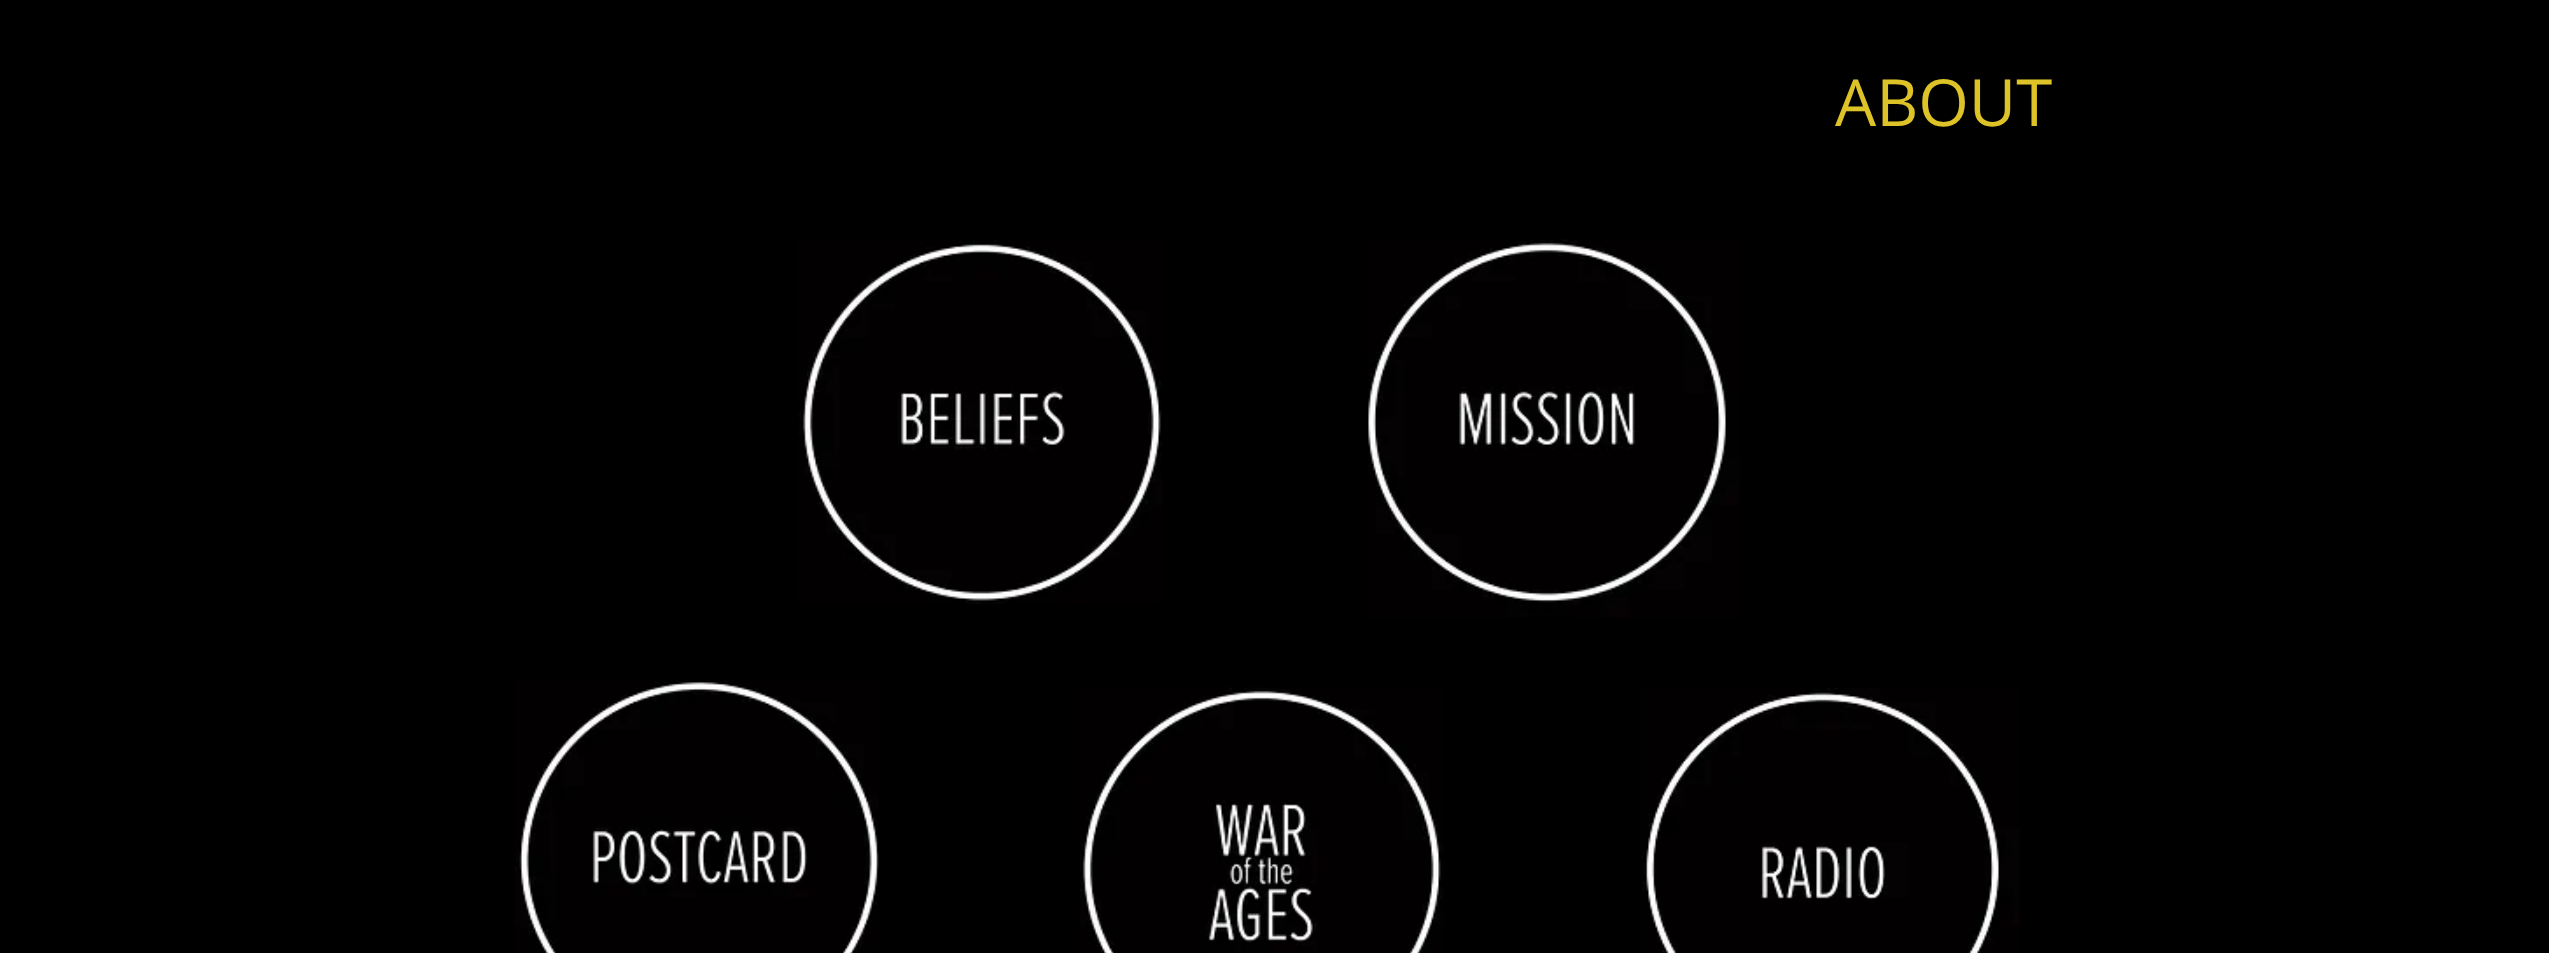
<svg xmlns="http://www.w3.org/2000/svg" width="2549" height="953">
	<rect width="100%" height="100%" fill="#000000" />
	<text x="1835" y="126" font-family="Open Sans" font-size="65" fill="#DEC328">ABOUT</text>
	<image x="798" y="240" width="364" height="364" href="assets/img1.png" />
	<image x="1368" y="239" width="372" height="379" href="assets/img2.png" />
	<image x="514" y="680" width="365" height="273" href="assets/img3.png" />
	<image x="1080" y="687" width="364" height="266" href="assets/img4.png" />
	<image x="1641" y="688" width="379" height="265" href="assets/img5.png" />
</svg>
